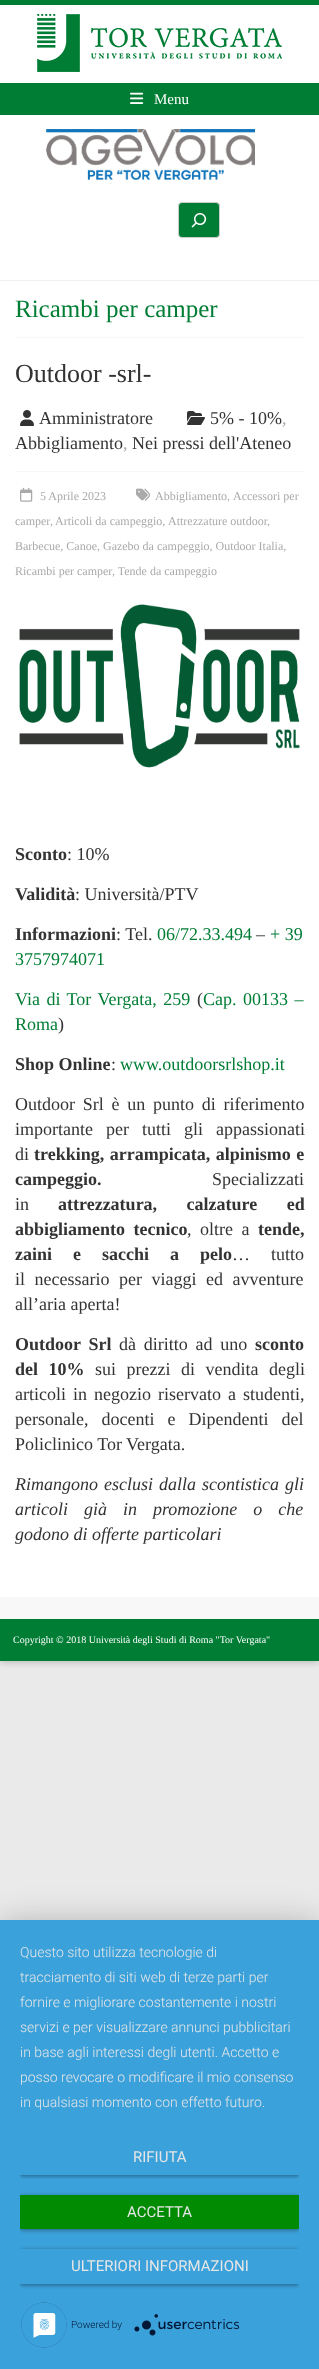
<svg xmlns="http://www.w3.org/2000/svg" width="319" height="2369">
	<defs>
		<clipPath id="clip1"><rect x="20" y="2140" width="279" height="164" /></clipPath>
		<clipPath id="clip2"><rect x="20" y="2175" width="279" height="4" /></clipPath>
		<clipPath id="clip3"><path d="M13 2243H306V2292H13ZM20 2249H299V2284H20Z" clip-rule="evenodd" /></clipPath>
	</defs>
	<rect width="100%" height="100%" fill="#EAEAEA" />
	<rect x="0" y="2" width="319" height="1661" fill="#646464" fill-opacity="0.3" filter="blur(3px)" />
	<rect x="0" y="280" width="319" height="1" fill="#F2F2F2" />
	<rect x="0" y="5" width="319" height="275" fill="#FFFFFF" />
	<rect x="0" y="0" width="319" height="5" fill="#007D34" />
	<image x="37" y="14" width="245" height="58" href="assets/img1.png" />
	<rect x="0" y="83" width="319" height="32" fill="#007D34" />
	<image x="130" y="92" width="14" height="12" href="assets/img2.png" />
	<text x="154" y="104" font-family="Liberation Serif" font-size="15" fill="#FFFFFF">Menu</text>
	<image x="46" y="129" width="209" height="51" href="assets/img3.png" />
	<rect x="178.5" y="202.5" width="41" height="35" rx="3.5" fill="#007D34" stroke="#CCCCCC" />
	<image x="191" y="213" width="16" height="15" href="assets/img4.png" />
	<rect x="0" y="281" width="319" height="1316" fill="#FFFFFF" />
	<rect x="15" y="337" width="289" height="1" fill="#F8F8F8" />
	<text x="15" y="317" font-family="Liberation Serif" font-size="25" fill="#007D34">Ricambi per camper</text>
	<text x="15" y="382" font-family="Liberation Serif" font-size="26" fill="#333333">Outdoor -srl-</text>
	<image x="187" y="411" width="18" height="14" href="assets/img5.png" />
	<text x="210" y="424" font-family="Liberation Serif" font-size="18" fill="#333333">5% - 10%</text>
	<text x="282" y="424" font-family="Liberation Serif" font-size="18" fill="#AAAAAA">,</text>
	<text x="15" y="449" font-family="Liberation Serif" font-size="18" fill="#333333">Abbigliamento</text>
	<text x="123" y="449" font-family="Liberation Serif" font-size="18" fill="#AAAAAA">,</text>
	<text x="132" y="449" font-family="Liberation Serif" font-size="18" fill="#333333">Nei pressi dell'Ateneo</text>
	<image x="20" y="410" width="14" height="16" href="assets/img6.png" />
	<text x="39" y="424" font-family="Liberation Serif" font-size="18" fill="#333333">Amministratore</text>
	<rect x="15" y="471" width="289" height="1" fill="#F8F8F8" />
	<image x="136" y="488" width="14" height="13" href="assets/img7.png" />
	<g font-family="Liberation Serif" font-size="12" fill="#AAAAAA">
		<text x="155" y="500">Abbigliamento,</text>
		<text x="233" y="500">Accessori per</text>
		<text x="15" y="525">camper</text>
		<text x="50" y="525">,</text>
		<text x="55" y="525">Articoli da campeggio,</text>
		<text x="168" y="525">Attrezzature outdoor</text>
		<text x="267" y="525">,</text>
		<text x="15" y="550">Barbecue, Canoe, Gazebo da campeggio, Outdoor Italia,</text>
		<text x="15" y="575">Ricambi per camper</text>
		<text x="112" y="575">, Tende da campeggio</text>
	</g>
	<image x="20" y="487" width="13" height="15" href="assets/img8.png" />
	<text x="40" y="500" font-family="Liberation Serif" font-size="12" fill="#AAAAAA">5 Aprile 2023</text>
	<image x="19" y="604" width="281" height="164" href="assets/img9.png" />
	<text x="15" y="860" font-family="Liberation Serif" font-size="18" font-weight="700" fill="#333333">Sconto</text>
	<text x="67" y="860" font-family="Liberation Serif" font-size="18" fill="#333333">: 10%</text>
	<text x="15" y="900" font-family="Liberation Serif" font-size="18" font-weight="700" fill="#333333">Validità</text>
	<text x="75" y="900" font-family="Liberation Serif" font-size="18" fill="#333333">: Università/PTV</text>
	<text x="15" y="940" font-family="Liberation Serif" font-size="18" font-weight="700" fill="#333333">Informazioni</text>
	<text x="116" y="940" font-family="Liberation Serif" font-size="18" fill="#333333">: Tel.</text>
	<text x="157" y="940" font-family="Liberation Serif" font-size="18" fill="#007D34">06/72.33.494</text>
	<text x="256" y="940" font-family="Liberation Serif" font-size="18" fill="#333333">–</text>
	<g font-family="Liberation Serif" font-size="18" fill="#007D34">
		<text x="270" y="940">+ 39</text>
		<text x="15" y="965">3757974071</text>
		<text x="15" y="1005" word-spacing="2">Via di Tor Vergata, 259</text>
	</g>
	<text x="197" y="1005" font-family="Liberation Serif" font-size="18" fill="#333333">(</text>
	<g font-family="Liberation Serif" font-size="18" fill="#007D34">
		<text x="203" y="1005" word-spacing="2">Cap. 00133 –</text>
		<text x="15" y="1030">Roma</text>
	</g>
	<text x="58" y="1030" font-family="Liberation Serif" font-size="18" fill="#333333">)</text>
	<text x="15" y="1070" font-family="Liberation Serif" font-size="18" font-weight="700" fill="#333333">Shop Online</text>
	<text x="111" y="1070" font-family="Liberation Serif" font-size="18" fill="#333333">:</text>
	<text x="120" y="1070" font-family="Liberation Serif" font-size="18" fill="#007D34">www.outdoorsrlshop.it</text>
	<g font-family="Liberation Serif" font-size="18" fill="#333333">
		<text x="15" y="1110" word-spacing="3.25">Outdoor Srl è un punto di riferimento</text>
		<text x="15" y="1135" word-spacing="8.5">importante per tutti gli appassionati</text>
		<text x="15" y="1160">di</text>
	</g>
	<g font-family="Liberation Serif" font-size="18" font-weight="700" fill="#333333">
		<text x="34" y="1160" word-spacing="1">trekking, arrampicata, alpinismo e</text>
		<text x="15" y="1185">campeggio.</text>
	</g>
	<g font-family="Liberation Serif" font-size="18" fill="#333333">
		<text x="212" y="1185">Specializzati</text>
		<text x="15" y="1210">in</text>
	</g>
	<g font-family="Liberation Serif" font-size="18" font-weight="700" fill="#333333">
		<text x="58" y="1210" word-spacing="25">attrezzatura, calzature ed</text>
		<text x="15" y="1235" word-spacing="4">abbigliamento tecnico</text>
	</g>
	<text x="187" y="1235" word-spacing="4" font-family="Liberation Serif" font-size="18" fill="#333333">, oltre a</text>
	<g font-family="Liberation Serif" font-size="18" font-weight="700" fill="#333333">
		<text x="258" y="1235">tende,</text>
		<text x="15" y="1260" word-spacing="16.5">zaini e sacchi a pelo</text>
	</g>
	<g font-family="Liberation Serif" font-size="18" fill="#333333">
		<text x="232" y="1260" word-spacing="16.5">… tutto</text>
		<text x="15" y="1285" word-spacing="5">il necessario per viaggi ed avventure</text>
		<text x="15" y="1310">all’aria aperta!</text>
	</g>
	<text x="15" y="1350" word-spacing="3.25" font-family="Liberation Serif" font-size="18" font-weight="700" fill="#333333">Outdoor Srl</text>
	<text x="119" y="1350" word-spacing="3.25" font-family="Liberation Serif" font-size="18" fill="#333333">dà diritto ad uno</text>
	<g font-family="Liberation Serif" font-size="18" font-weight="700" fill="#333333">
		<text x="255" y="1350">sconto</text>
		<text x="15" y="1375" word-spacing="6">del 10%</text>
	</g>
	<g font-family="Liberation Serif" font-size="18" fill="#333333">
		<text x="95" y="1375" word-spacing="6">sui prezzi di vendita degli</text>
		<text x="15" y="1400" word-spacing="2.5">articoli in negozio riservato a studenti,</text>
		<text x="15" y="1425" word-spacing="8.5">personale, docenti e Dipendenti del</text>
		<text x="15" y="1450">Policlinico Tor Vergata.</text>
	</g>
	<g font-family="Liberation Serif" font-size="18" font-style="italic" fill="#333333">
		<text x="15" y="1490" word-spacing="1.5">Rimangono esclusi dalla scontistica gli</text>
		<text x="15" y="1515" word-spacing="11.5">articoli già in promozione o che</text>
		<text x="15" y="1540">godono di offerte particolari</text>
	</g>
	<rect x="0" y="1597" width="319" height="22" fill="#F8F8F8" />
	<rect x="0" y="1619" width="319" height="42" fill="#007D34" />
	<text x="13" y="1643" font-family="Liberation Serif" font-size="10" fill="#FFFFFF">Copyright © 2018 Università degli Studi di Roma "Tor Vergata"</text>
	<rect x="0" y="1926" width="319" height="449" fill="#000000" fill-opacity="0.3" filter="blur(18px)" />
	<rect x="0" y="1920" width="319" height="449" fill="#3BA1DB" />
	<g font-family="Roboto" font-size="14" font-weight="300" fill="#E6E6E6">
		<text x="20" y="1957">Questo sito utilizza tecnologie di</text>
		<text x="20" y="1982">tracciamento di siti web di terze parti per</text>
		<text x="20" y="2007">fornire e migliorare costantemente i nostri</text>
		<text x="20" y="2032">servizi e per visualizzare annunci pubblicitari</text>
		<text x="20" y="2057">in base agli interessi degli utenti. Accetto e</text>
		<text x="20" y="2082">posso revocare o modificare il mio consenso</text>
		<text x="20" y="2107">in qualsiasi momento con effetto futuro.</text>
	</g>
	<g clip-path="url(#clip1)">
		<g clip-path="url(#clip2)">
			<rect x="20" y="2141" width="279" height="35" fill="#000000" fill-opacity="0.4" filter="blur(2px)" />
		</g>
	</g>
	<text x="133" y="2162" font-family="Roboto" font-size="15" fill="#E6E6E6">RIFIUTA</text>
	<g clip-path="url(#clip1)">
		<rect x="20" y="2196" width="279" height="34" fill="#000000" fill-opacity="0.4" filter="blur(2px)" />
	</g>
	<rect x="20" y="2195" width="279" height="34" fill="#008B02" />
	<text x="127" y="2217" font-family="Roboto" font-size="15" fill="#E6E6E6">ACCETTA</text>
	<g clip-path="url(#clip1)">
		<g clip-path="url(#clip3)">
			<rect x="20" y="2250" width="279" height="35" fill="#000000" fill-opacity="0.4" filter="blur(2px)" />
		</g>
	</g>
	<text x="71" y="2271" font-family="Roboto" font-size="15" fill="#E6E6E6">ULTERIORI INFORMAZIONI</text>
	<text x="71" y="2328" font-family="Roboto" font-size="10" font-weight="300" fill="#021836">Powered by</text>
	<image x="134" y="2314" width="106" height="22" href="assets/img10.png" />
	<image x="21" y="2302" width="46" height="46" href="assets/img11.png" />
</svg>
